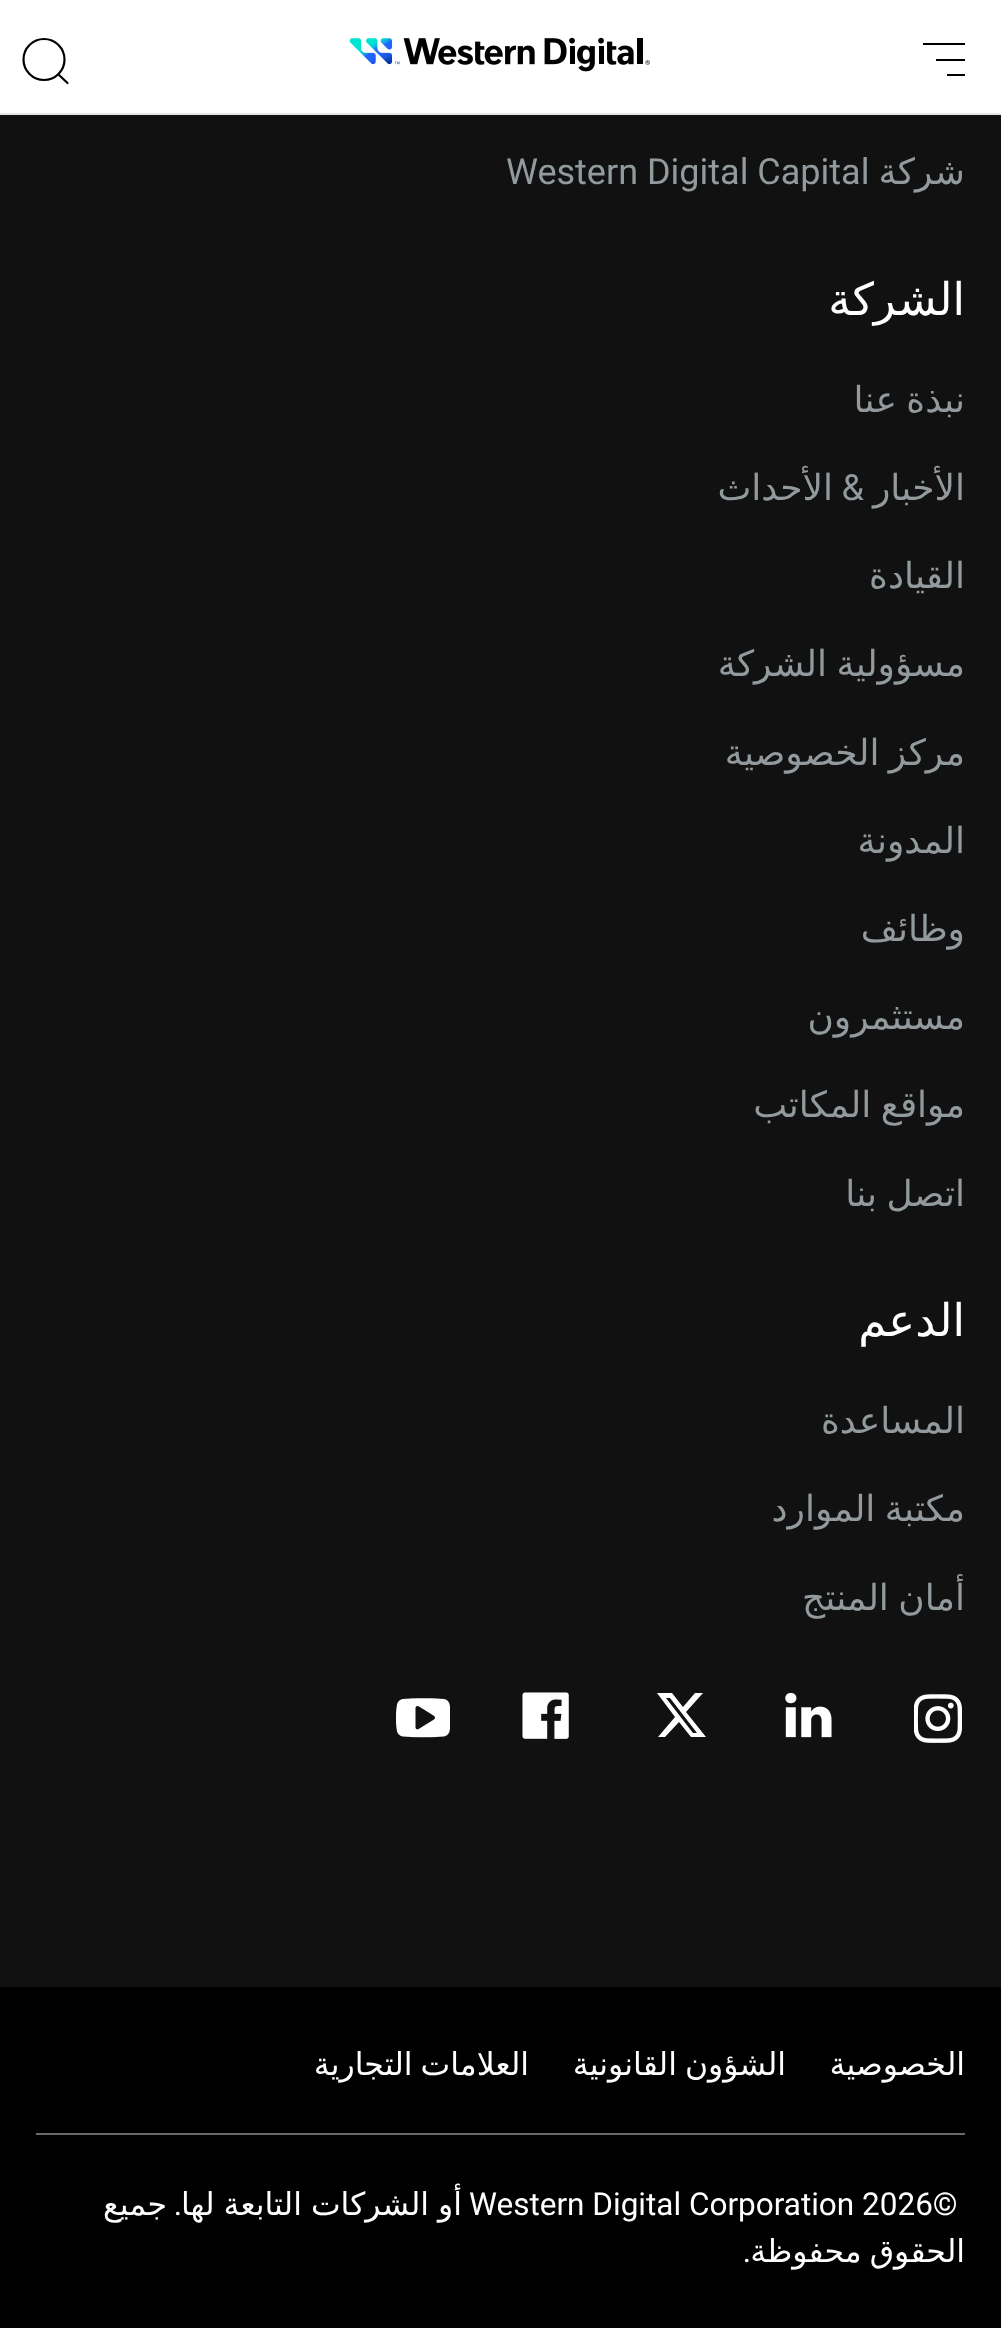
<svg xmlns="http://www.w3.org/2000/svg" width="1001" height="2328">
	<rect width="100%" height="100%" fill="#111111" />
	<rect x="0" y="0" width="1001" height="113" fill="#FFFFFF" />
	<rect x="0" y="113" width="1001" height="2" fill="#E6E6E6" />
	<rect x="936" y="59" width="29" height="2" fill="#000000" />
	<rect x="923" y="43" width="42" height="2" fill="#000000" />
	<rect x="947" y="74" width="18" height="2" fill="#000000" />
	<image x="349" y="37" width="301" height="35" href="assets/img1.png" />
	<circle cx="44" cy="59.5" r="20.5" fill="none" stroke="#000000" stroke-width="2.2" />
	<path d="M67.5 83L59 75" fill="none" stroke="#000000" stroke-width="2.2" stroke-linecap="round" />
	<text x="965" y="184" font-family="DejaVu Sans" font-size="36" direction="rtl" fill="#929A9D">شركة</text>
	<text x="506" y="184" font-family="Roboto" font-size="36" fill="#929A9D">Western Digital Capital</text>
	<text x="965" y="315" font-family="DejaVu Sans" font-size="45" direction="rtl" fill="#FFFFFF">الشركة</text>
	<g font-family="DejaVu Sans" font-size="36" direction="rtl" fill="#929A9D">
		<text x="965" y="412" word-spacing="-2">نبذة عنا</text>
		<text x="965" y="500">الأخبار</text>
	</g>
	<text x="864" y="500" font-family="Roboto" font-size="36" direction="rtl" fill="#929A9D">&amp;</text>
	<g font-family="DejaVu Sans" font-size="36" direction="rtl" fill="#929A9D">
		<text x="833" y="500">الأحداث</text>
		<text x="965" y="588">القيادة</text>
		<text x="965" y="676" word-spacing="-2">مسؤولية الشركة</text>
		<text x="965" y="765" word-spacing="-2">مركز الخصوصية</text>
		<text x="965" y="853">المدونة</text>
		<text x="965" y="941">وظائف</text>
		<text x="965" y="1029">مستثمرون</text>
		<text x="965" y="1117" word-spacing="-2">مواقع المكاتب</text>
		<text x="965" y="1206" word-spacing="-2">اتصل بنا</text>
	</g>
	<text x="965" y="1336" font-family="DejaVu Sans" font-size="45" direction="rtl" fill="#FFFFFF">الدعم</text>
	<g font-family="DejaVu Sans" font-size="36" direction="rtl" fill="#929A9D">
		<text x="965" y="1433">المساعدة</text>
		<text x="965" y="1521" word-spacing="-2">مكتبة الموارد</text>
		<text x="965" y="1610" word-spacing="-2">أمان المنتج</text>
	</g>
	<image x="914" y="1694" width="48" height="49" href="assets/img2.png" />
	<image x="785" y="1692" width="47" height="46" href="assets/img3.png" />
	<path d="M695 1693H703L686 1712L706 1737H691L679 1722L665 1737H658L675 1717L657 1693H672L683 1707ZM693 1733H697L670 1698H666Z" fill="#FFFFFF" />
	<image x="522" y="1692" width="47" height="47" href="assets/img4.png" />
	<image x="396" y="1698" width="54" height="40" href="assets/img5.png" />
	<rect x="0" y="1987" width="1001" height="341" fill="#000000" />
	<rect x="36" y="2133" width="929" height="2" fill="#6A6A6A" />
	<g font-family="DejaVu Sans" font-size="31.5" direction="rtl" fill="#FFFFFF">
		<text x="965" y="2075">الخصوصية</text>
		<text x="786" y="2075" word-spacing="-2">الشؤون القانونية</text>
		<text x="529" y="2075" word-spacing="-2">العلامات التجارية</text>
	</g>
	<text x="469" y="2215" font-family="Roboto" font-size="31.5" fill="#FFFFFF">Western Digital Corporation 2026©</text>
	<text x="462" y="2215" word-spacing="-1" font-family="DejaVu Sans" font-size="31.5" direction="rtl" fill="#FFFFFF">أو الشركات التابعة لها</text>
	<text x="182" y="2215" font-family="Roboto" font-size="31.5" direction="rtl" fill="#FFFFFF">.</text>
	<g font-family="DejaVu Sans" font-size="31.5" direction="rtl" fill="#FFFFFF">
		<text x="167" y="2215">جميع</text>
		<text x="965" y="2262" word-spacing="-2">الحقوق محفوظة</text>
	</g>
	<text x="751" y="2262" font-family="Roboto" font-size="31.5" direction="rtl" fill="#FFFFFF">.</text>
</svg>
